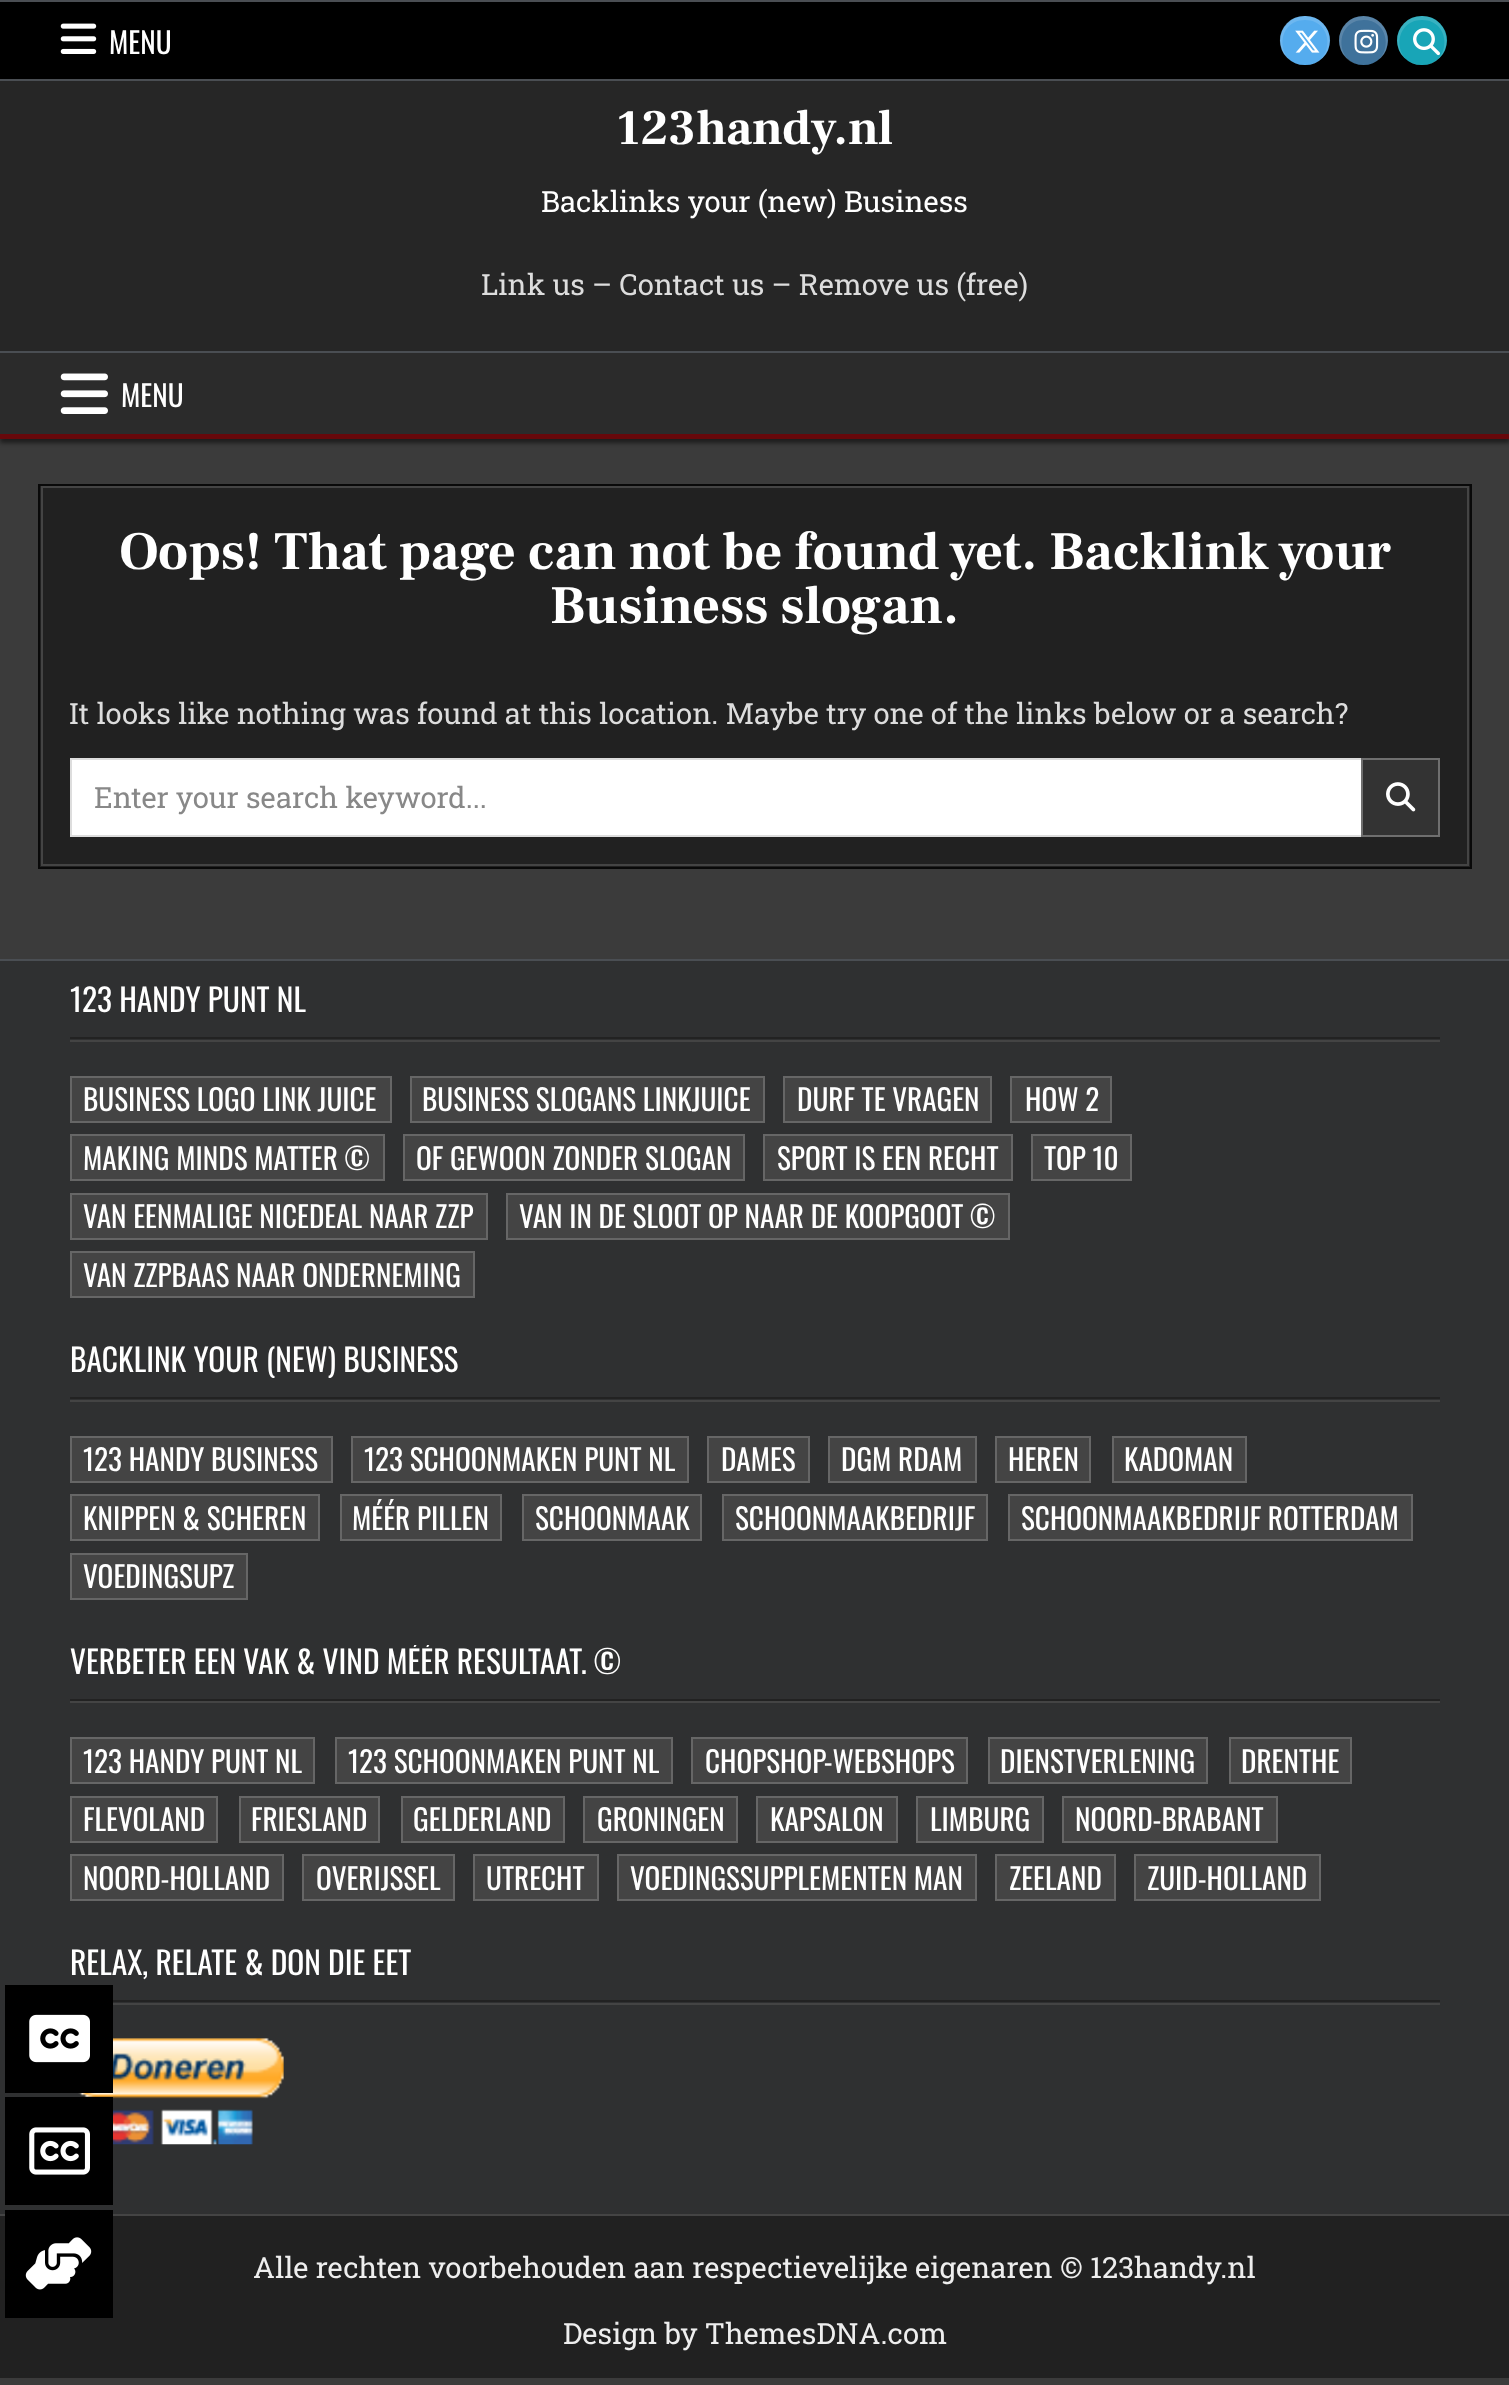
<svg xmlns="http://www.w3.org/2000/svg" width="1509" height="2385">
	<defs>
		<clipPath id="clip1"><rect x="70" y="1645" width="1370" height="268" /></clipPath>
	</defs>
	<rect width="100%" height="100%" fill="#3B3B3B" />
	<rect x="0" y="961" width="1509" height="1253" fill="#2F3031" />
	<image x="78" y="2038" width="206" height="107" href="assets/img10.png" />
	<rect x="5" y="1985" width="108" height="108" fill="#000000" />
	<image x="29" y="2014" width="61" height="49" href="assets/img1.png" />
	<rect x="5" y="2097" width="108" height="108" fill="#000000" />
	<image x="29" y="2127" width="61" height="48" href="assets/img2.png" />
	<rect x="0" y="2216" width="1509" height="162" fill="#212121" />
	<rect x="0" y="2214" width="1509" height="2" fill="#444444" />
	<rect x="5" y="2210" width="108" height="108" fill="#000000" />
	<image x="25" y="2237" width="67" height="53" href="assets/img3.png" />
	<rect x="0" y="2" width="1509" height="77" fill="#000000" />
	<rect x="0" y="0" width="1509" height="2" fill="#4A4E53" />
	<rect x="0" y="79" width="1509" height="2" fill="#4A4E53" />
	<image x="60" y="23" width="37" height="31" href="assets/img4.png" />
	<text x="109" y="54" font-family="Oswald" font-size="29.25" fill="#FFFFFF">MENU</text>
	<rect x="1280" y="16" width="50" height="49" rx="24.5" fill="#55ACEE" />
	<path d="M1304 16C1274 16 1270 62 1304 65C1310 65 1315 64 1319 61C1339 47 1329 16 1306 16ZM1305 20C1335 20 1335 65 1305 65C1275 65 1275 20 1305 20Z" fill="#FFFFFF" fill-opacity="0.14" fill-rule="evenodd" />
	<image x="1295" y="30" width="25" height="23" href="assets/img5.png" />
	<circle cx="1363.5" cy="40.5" r="24.5" fill="#3F729B" />
	<path d="M1364 20C1387 20 1392 49 1378 60C1383 57 1386 52 1387 46C1389 38 1387 29 1381 23C1376 19 1370 16 1364 16C1331 16 1331 65 1364 65C1334 65 1334 20 1364 20Z" fill="#FFFFFF" fill-opacity="0.14" />
	<image x="1354" y="29" width="25" height="25" href="assets/img6.png" />
	<rect x="1397" y="16" width="50" height="49" rx="24.5" fill="#18A5B7" />
	<path d="M1422 16C1391 16 1387 62 1422 65C1427 65 1432 64 1436 61C1456 47 1446 16 1422 16ZM1422 20C1452 20 1452 65 1422 65C1392 65 1392 20 1422 20Z" fill="#FFFFFF" fill-opacity="0.14" fill-rule="evenodd" />
	<image x="1413" y="28" width="27" height="28" href="assets/img7.png" />
	<rect x="0" y="356" width="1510" height="87" fill="#000000" fill-opacity="0.5" filter="blur(2px)" />
	<rect x="0" y="81" width="1509" height="270" fill="#262626" />
	<text x="616" y="144" font-family="Frank Ruhl Libre" font-size="49.5" font-weight="700" fill="#FFFFFF">123handy.nl</text>
	<text x="541" y="212" font-family="Roboto Slab" font-size="29.25" fill="#FFFFFF">Backlinks your (new) Business</text>
	<text x="481" y="295" font-family="Roboto Slab" font-size="29.25" fill="#DDDDDD">Link us – Contact us – Remove us (free)</text>
	<rect x="0" y="353" width="1509" height="81" fill="#2B2B2B" />
	<rect x="0" y="351" width="1509" height="2" fill="#4A4E53" />
	<rect x="0" y="434" width="1509" height="5" fill="#67080B" />
	<image x="60" y="373" width="48" height="41" href="assets/img8.png" />
	<text x="121" y="407" font-family="Oswald" font-size="29.25" fill="#FFFFFF">MENU</text>
	<rect x="39" y="485" width="1432" height="383" fill="#212121" stroke="#090909" stroke-width="2" />
	<rect x="42" y="487" width="1426" height="378" fill="none" stroke="#444444" stroke-width="2" />
	<g font-family="Frank Ruhl Libre" font-size="54" font-weight="700" fill="#FFFFFF">
		<text x="119" y="569">Oops! That page can not be found yet. Backlink your</text>
		<text x="550" y="623">Business slogan.</text>
	</g>
	<text x="69" y="724" font-family="Roboto Slab" font-size="29.25" fill="#DDDDDD">It looks like nothing was found at this location. Maybe try one of the links below or a search?</text>
	<rect x="72" y="760" width="1289" height="75" fill="#FFFFFF" />
	<rect x="71" y="759" width="1368" height="77" fill="none" stroke="#DDDDDD" stroke-width="2" />
	<text x="94" y="808" font-family="Roboto Slab" font-size="29.25" fill="#888888">Enter your search keyword...</text>
	<rect x="1362" y="759" width="77" height="77" fill="#333333" stroke="#6F6F6F" stroke-width="2" />
	<image x="1386" y="782" width="30" height="30" href="assets/img9.png" />
	<rect x="0" y="959" width="1509" height="2" fill="#4A4E53" />
	<rect x="70" y="1040" width="1370" height="2" fill="#444444" />
	<rect x="70" y="1037" width="1370" height="2" fill="#222222" />
	<text x="70" y="1012" font-family="Oswald" font-size="31.5" fill="#FFFFFF">123 HANDY PUNT NL</text>
	<rect x="71" y="1077" width="320" height="45" fill="#444444" stroke="#666666" stroke-width="2" />
	<text x="83" y="1111" font-family="Oswald" font-size="29.25" fill="#FFFFFF">BUSINESS LOGO LINK JUICE</text>
	<rect x="411" y="1077" width="353" height="45" fill="#444444" stroke="#666666" stroke-width="2" />
	<text x="422" y="1111" font-family="Oswald" font-size="29.25" fill="#FFFFFF">BUSINESS SLOGANS LINKJUICE</text>
	<rect x="784" y="1077" width="207" height="45" fill="#444444" stroke="#666666" stroke-width="2" />
	<text x="797" y="1111" font-family="Oswald" font-size="29.25" fill="#FFFFFF">DURF TE VRAGEN</text>
	<rect x="1011" y="1077" width="100" height="45" fill="#444444" stroke="#666666" stroke-width="2" />
	<text x="1025" y="1111" font-family="Oswald" font-size="29.25" fill="#FFFFFF">HOW 2</text>
	<rect x="71" y="1135" width="313" height="45" fill="#444444" stroke="#666666" stroke-width="2" />
	<text x="83" y="1170" font-family="Oswald" font-size="29.25" fill="#FFFFFF">MAKING MINDS MATTER ©</text>
	<rect x="404" y="1135" width="340" height="45" fill="#444444" stroke="#666666" stroke-width="2" />
	<text x="416" y="1170" font-family="Oswald" font-size="29.25" fill="#FFFFFF">OF GEWOON ZONDER SLOGAN</text>
	<rect x="764" y="1135" width="248" height="45" fill="#444444" stroke="#666666" stroke-width="2" />
	<text x="777" y="1170" font-family="Oswald" font-size="29.25" fill="#FFFFFF">SPORT IS EEN RECHT</text>
	<rect x="1032" y="1135" width="99" height="45" fill="#444444" stroke="#666666" stroke-width="2" />
	<text x="1044" y="1170" font-family="Oswald" font-size="29.25" fill="#FFFFFF">TOP 10</text>
	<rect x="71" y="1194" width="416" height="45" fill="#444444" stroke="#666666" stroke-width="2" />
	<text x="83" y="1228" font-family="Oswald" font-size="29.25" fill="#FFFFFF">VAN EENMALIGE NICEDEAL NAAR ZZP</text>
	<rect x="507" y="1194" width="502" height="45" fill="#444444" stroke="#666666" stroke-width="2" />
	<text x="519" y="1228" font-family="Oswald" font-size="29.25" fill="#FFFFFF">VAN IN DE SLOOT OP NAAR DE KOOPGOOT ©</text>
	<rect x="71" y="1252" width="403" height="45" fill="#444444" stroke="#666666" stroke-width="2" />
	<text x="83" y="1287" font-family="Oswald" font-size="29.25" fill="#FFFFFF">VAN ZZPBAAS NAAR ONDERNEMING</text>
	<rect x="70" y="1400" width="1370" height="2" fill="#444444" />
	<rect x="70" y="1397" width="1370" height="2" fill="#222222" />
	<text x="70" y="1372" font-family="Oswald" font-size="31.5" fill="#FFFFFF">BACKLINK YOUR (NEW) BUSINESS</text>
	<rect x="71" y="1437" width="261" height="45" fill="#444444" stroke="#666666" stroke-width="2" />
	<text x="83" y="1471" font-family="Oswald" font-size="29.25" fill="#FFFFFF">123 HANDY BUSINESS</text>
	<rect x="352" y="1437" width="336" height="45" fill="#444444" stroke="#666666" stroke-width="2" />
	<text x="364" y="1471" font-family="Oswald" font-size="29.25" fill="#FFFFFF">123 SCHOONMAKEN PUNT NL</text>
	<rect x="708" y="1437" width="101" height="45" fill="#444444" stroke="#666666" stroke-width="2" />
	<text x="721" y="1471" font-family="Oswald" font-size="29.25" fill="#FFFFFF">DAMES</text>
	<rect x="829" y="1437" width="147" height="45" fill="#444444" stroke="#666666" stroke-width="2" />
	<text x="841" y="1471" font-family="Oswald" font-size="29.25" fill="#FFFFFF">DGM RDAM</text>
	<rect x="996" y="1437" width="94" height="45" fill="#444444" stroke="#666666" stroke-width="2" />
	<text x="1008" y="1471" font-family="Oswald" font-size="29.25" fill="#FFFFFF">HEREN</text>
	<rect x="1113" y="1437" width="133" height="45" fill="#444444" stroke="#666666" stroke-width="2" />
	<text x="1124" y="1471" font-family="Oswald" font-size="29.25" fill="#FFFFFF">KADOMAN</text>
	<rect x="71" y="1495" width="248" height="45" fill="#444444" stroke="#666666" stroke-width="2" />
	<text x="83" y="1530" font-family="Oswald" font-size="29.25" fill="#FFFFFF">KNIPPEN &amp; SCHEREN</text>
	<rect x="341" y="1495" width="160" height="45" fill="#444444" stroke="#666666" stroke-width="2" />
	<text x="352" y="1530" font-family="Oswald" font-size="29.25" fill="#FFFFFF">MÉÉR PILLEN</text>
	<rect x="523" y="1495" width="178" height="45" fill="#444444" stroke="#666666" stroke-width="2" />
	<text x="535" y="1530" font-family="Oswald" font-size="29.25" fill="#FFFFFF">SCHOONMAAK</text>
	<rect x="723" y="1495" width="264" height="45" fill="#444444" stroke="#666666" stroke-width="2" />
	<text x="735" y="1530" font-family="Oswald" font-size="29.25" fill="#FFFFFF">SCHOONMAAKBEDRIJF</text>
	<rect x="1009" y="1495" width="403" height="45" fill="#444444" stroke="#666666" stroke-width="2" />
	<text x="1021" y="1530" font-family="Oswald" font-size="29.25" fill="#FFFFFF">SCHOONMAAKBEDRIJF ROTTERDAM</text>
	<rect x="71" y="1554" width="176" height="45" fill="#444444" stroke="#666666" stroke-width="2" />
	<text x="83" y="1588" font-family="Oswald" font-size="29.25" fill="#FFFFFF">VOEDINGSUPZ</text>
	<rect x="70" y="1701" width="1370" height="2" fill="#444444" />
	<rect x="70" y="1699" width="1370" height="2" fill="#222222" />
	<g clip-path="url(#clip1)">
		<text x="70" y="1674" font-family="Oswald" font-size="31.5" fill="#FFFFFF">VERBETER EEN VAK &amp; VIND MÉÉR RESULTAAT. ©</text>
	</g>
	<rect x="71" y="1738" width="243" height="45" fill="#444444" stroke="#666666" stroke-width="2" />
	<text x="83" y="1773" font-family="Oswald" font-size="29.25" fill="#FFFFFF">123 HANDY PUNT NL</text>
	<rect x="336" y="1738" width="336" height="45" fill="#444444" stroke="#666666" stroke-width="2" />
	<text x="348" y="1773" font-family="Oswald" font-size="29.25" fill="#FFFFFF">123 SCHOONMAKEN PUNT NL</text>
	<rect x="692" y="1738" width="275" height="45" fill="#444444" stroke="#666666" stroke-width="2" />
	<text x="705" y="1773" font-family="Oswald" font-size="29.25" fill="#FFFFFF">CHOPSHOP-WEBSHOPS</text>
	<rect x="989" y="1738" width="218" height="45" fill="#444444" stroke="#666666" stroke-width="2" />
	<text x="1000" y="1773" font-family="Oswald" font-size="29.25" fill="#FFFFFF">DIENSTVERLENING</text>
	<rect x="1230" y="1738" width="121" height="45" fill="#444444" stroke="#666666" stroke-width="2" />
	<text x="1241" y="1773" font-family="Oswald" font-size="29.25" fill="#FFFFFF">DRENTHE</text>
	<rect x="71" y="1797" width="146" height="45" fill="#444444" stroke="#666666" stroke-width="2" />
	<text x="83" y="1831" font-family="Oswald" font-size="29.25" fill="#FFFFFF">FLEVOLAND</text>
	<rect x="240" y="1797" width="139" height="45" fill="#444444" stroke="#666666" stroke-width="2" />
	<text x="251" y="1831" font-family="Oswald" font-size="29.25" fill="#FFFFFF">FRIESLAND</text>
	<rect x="402" y="1797" width="162" height="45" fill="#444444" stroke="#666666" stroke-width="2" />
	<text x="413" y="1831" font-family="Oswald" font-size="29.25" fill="#FFFFFF">GELDERLAND</text>
	<rect x="584" y="1797" width="153" height="45" fill="#444444" stroke="#666666" stroke-width="2" />
	<text x="597" y="1831" font-family="Oswald" font-size="29.25" fill="#FFFFFF">GRONINGEN</text>
	<rect x="757" y="1797" width="140" height="45" fill="#444444" stroke="#666666" stroke-width="2" />
	<text x="770" y="1831" font-family="Oswald" font-size="29.25" fill="#FFFFFF">KAPSALON</text>
	<rect x="917" y="1797" width="126" height="45" fill="#444444" stroke="#666666" stroke-width="2" />
	<text x="930" y="1831" font-family="Oswald" font-size="29.25" fill="#FFFFFF">LIMBURG</text>
	<rect x="1063" y="1797" width="214" height="45" fill="#444444" stroke="#666666" stroke-width="2" />
	<text x="1075" y="1831" font-family="Oswald" font-size="29.25" fill="#FFFFFF">NOORD-BRABANT</text>
	<rect x="71" y="1855" width="212" height="45" fill="#444444" stroke="#666666" stroke-width="2" />
	<text x="83" y="1890" font-family="Oswald" font-size="29.25" fill="#FFFFFF">NOORD-HOLLAND</text>
	<rect x="303" y="1855" width="151" height="45" fill="#444444" stroke="#666666" stroke-width="2" />
	<text x="316" y="1890" font-family="Oswald" font-size="29.25" fill="#FFFFFF">OVERIJSSEL</text>
	<rect x="474" y="1855" width="124" height="45" fill="#444444" stroke="#666666" stroke-width="2" />
	<text x="486" y="1890" font-family="Oswald" font-size="29.25" fill="#FFFFFF">UTRECHT</text>
	<rect x="618" y="1855" width="358" height="45" fill="#444444" stroke="#666666" stroke-width="2" />
	<text x="630" y="1890" font-family="Oswald" font-size="29.25" fill="#FFFFFF">VOEDINGSSUPPLEMENTEN MAN</text>
	<rect x="996" y="1855" width="119" height="45" fill="#444444" stroke="#666666" stroke-width="2" />
	<text x="1009" y="1890" font-family="Oswald" font-size="29.25" fill="#FFFFFF">ZEELAND</text>
	<rect x="1135" y="1855" width="185" height="45" fill="#444444" stroke="#666666" stroke-width="2" />
	<text x="1147" y="1890" font-family="Oswald" font-size="29.25" fill="#FFFFFF">ZUID-HOLLAND</text>
	<rect x="113" y="2003" width="1327" height="2" fill="#444444" />
	<rect x="113" y="2000" width="1327" height="2" fill="#222222" />
	<text x="70" y="1975" font-family="Oswald" font-size="31.5" fill="#FFFFFF">RELAX, RELATE &amp; DON DIE EET</text>
	<g font-family="Roboto Slab" font-size="29.25" fill="#EEEEEE">
		<text x="253" y="2278">Alle rechten voorbehouden aan respectievelijke eigenaren © 123handy.nl</text>
		<text x="563" y="2344">Design by ThemesDNA.com</text>
	</g>
</svg>
